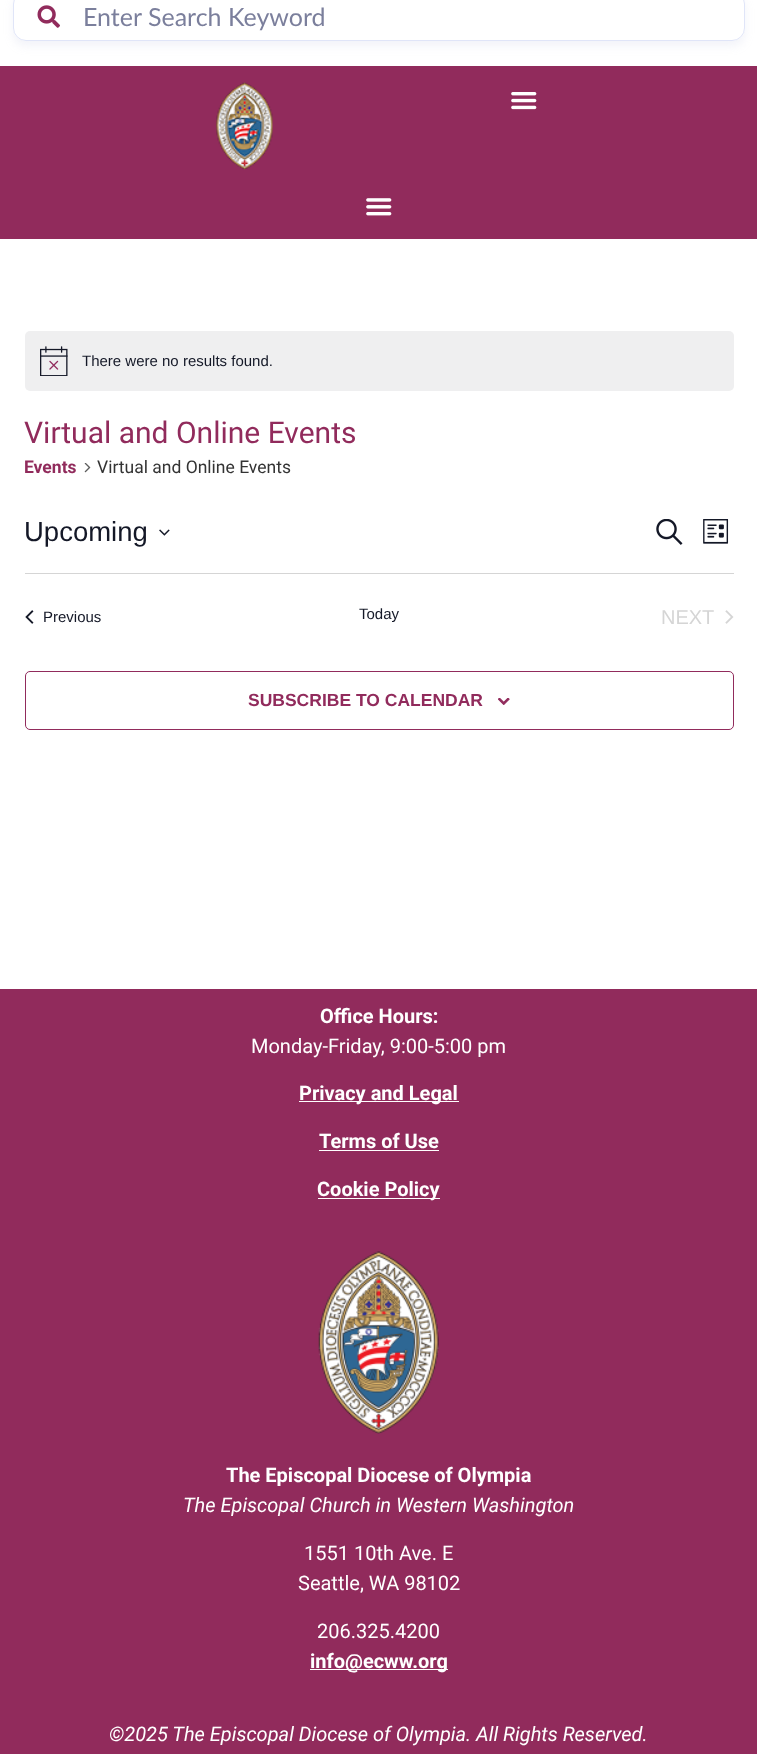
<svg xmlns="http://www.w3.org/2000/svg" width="757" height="1754">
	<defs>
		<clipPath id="clip1"><path d="M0 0H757V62H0ZM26-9H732C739-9 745-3 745 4V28C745 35 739 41 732 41H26C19 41 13 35 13 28V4C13-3 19-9 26-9Z" clip-rule="evenodd" /></clipPath>
	</defs>
	<rect width="100%" height="100%" fill="#FFFFFF" />
	<g clip-path="url(#clip1)">
		<rect x="13" y="-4" width="732" height="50" rx="13" fill="#A5AED5" fill-opacity="0.15" filter="blur(5px)" />
	</g>
	<rect x="13.5" y="-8.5" width="731" height="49" rx="12.5" fill="none" stroke="#E0E5F8" />
	<image x="37" y="5" width="23" height="23" href="assets/img1.png" />
	<text x="83" y="26" font-family="Lato" font-size="25" fill="#7B7F9C">Enter Search Keyword</text>
	<rect x="0" y="66" width="757" height="173" fill="#912B5C" />
	<image x="216" y="82" width="57" height="88" href="assets/img2.png" />
	<image x="511" y="92" width="26" height="18" href="assets/img3.png" />
	<image x="366" y="198" width="26" height="18" href="assets/img4.png" />
	<rect x="25" y="331" width="709" height="60" rx="5" fill="#EFEFF0" />
	<image x="40" y="346" width="28" height="30" href="assets/img5.png" />
	<text x="82" y="366" font-family="Liberation Sans" font-size="15" fill="#141827">There were no results found.</text>
	<text x="24" y="443" font-family="Roboto" font-size="30" fill="#912B5C">Virtual and Online Events</text>
	<text x="24" y="473" font-family="Roboto" font-size="17.5" font-weight="700" fill="#912B5C">Events</text>
	<image x="84" y="463" width="7" height="10" href="assets/img6.png" />
	<text x="97" y="473" font-family="Roboto" font-size="17.5" fill="#333333">Virtual and Online Events</text>
	<text x="24" y="541" font-family="Liberation Sans" font-size="27.5" fill="#141827">Upcoming</text>
	<image x="159" y="529" width="11" height="7" href="assets/img7.png" />
	<image x="656" y="519" width="27" height="26" href="assets/img8.png" />
	<image x="703" y="519" width="26" height="25" href="assets/img9.png" />
	<rect x="25" y="573" width="709" height="1" fill="#D5D5D5" />
	<image x="25" y="610" width="9" height="14" href="assets/img10.png" />
	<g font-family="Liberation Sans" font-size="15" fill="#141827">
		<text x="43" y="622">Previous</text>
		<text x="359" y="619">Today</text>
	</g>
	<text x="661" y="624" font-family="Liberation Sans" font-size="20" fill="#D5D5D5">NEXT</text>
	<image x="725" y="610" width="9" height="14" href="assets/img11.png" />
	<rect x="25.5" y="671.5" width="708" height="58" rx="4.5" fill="none" stroke="#912B5C" />
	<text x="248" y="706" font-family="Liberation Sans" font-size="17.5" font-weight="700" fill="#912B5C">SUBSCRIBE TO CALENDAR</text>
	<image x="498" y="698" width="12" height="7" href="assets/img12.png" />
	<rect x="0" y="989" width="757" height="765" fill="#912B5C" />
	<text x="320" y="1023" font-family="Roboto" font-size="20" font-weight="700" fill="#FFFFFF">Office Hours:</text>
	<text x="251" y="1053" font-family="Roboto" font-size="20" fill="#FFFFFF">Monday-Friday, 9:00-5:00 pm</text>
	<rect x="299" y="1101" width="160" height="1" fill="#FFFFFF" />
	<g font-family="Roboto" font-size="20" font-weight="700" fill="#FFFFFF">
		<text x="299" y="1100">Privacy and Legal</text>
		<text x="319" y="1148">Terms of Use</text>
	</g>
	<rect x="319" y="1150" width="120" height="1" fill="#FFFFFF" />
	<rect x="318" y="1198" width="122" height="1" fill="#FFFFFF" />
	<text x="317" y="1196" font-family="Roboto" font-size="20" font-weight="700" fill="#FFFFFF">Cookie Policy</text>
	<image x="318" y="1251" width="121" height="183" href="assets/img13.png" />
	<text x="226" y="1482" font-family="Roboto" font-size="20" font-weight="700" fill="#FFFFFF">The Episcopal Diocese of Olympia</text>
	<text x="183" y="1512" font-family="Roboto" font-size="20" font-style="italic" fill="#FFFFFF">The Episcopal Church in Western Washington</text>
	<g font-family="Roboto" font-size="20" fill="#FFFFFF">
		<text x="304" y="1560">1551 10th Ave. E</text>
		<text x="298" y="1590">Seattle, WA 98102</text>
		<text x="317" y="1638">206.325.4200</text>
	</g>
	<rect x="310" y="1669" width="138" height="1" fill="#FFFFFF" />
	<text x="310" y="1668" font-family="Roboto" font-size="20" font-weight="700" fill="#FFFFFF">info@ecww.org</text>
	<text x="109" y="1741" font-family="Roboto" font-size="20" font-style="italic" fill="#FFFFFF">©2025 The Episcopal Diocese of Olympia. All Rights Reserved.</text>
</svg>
